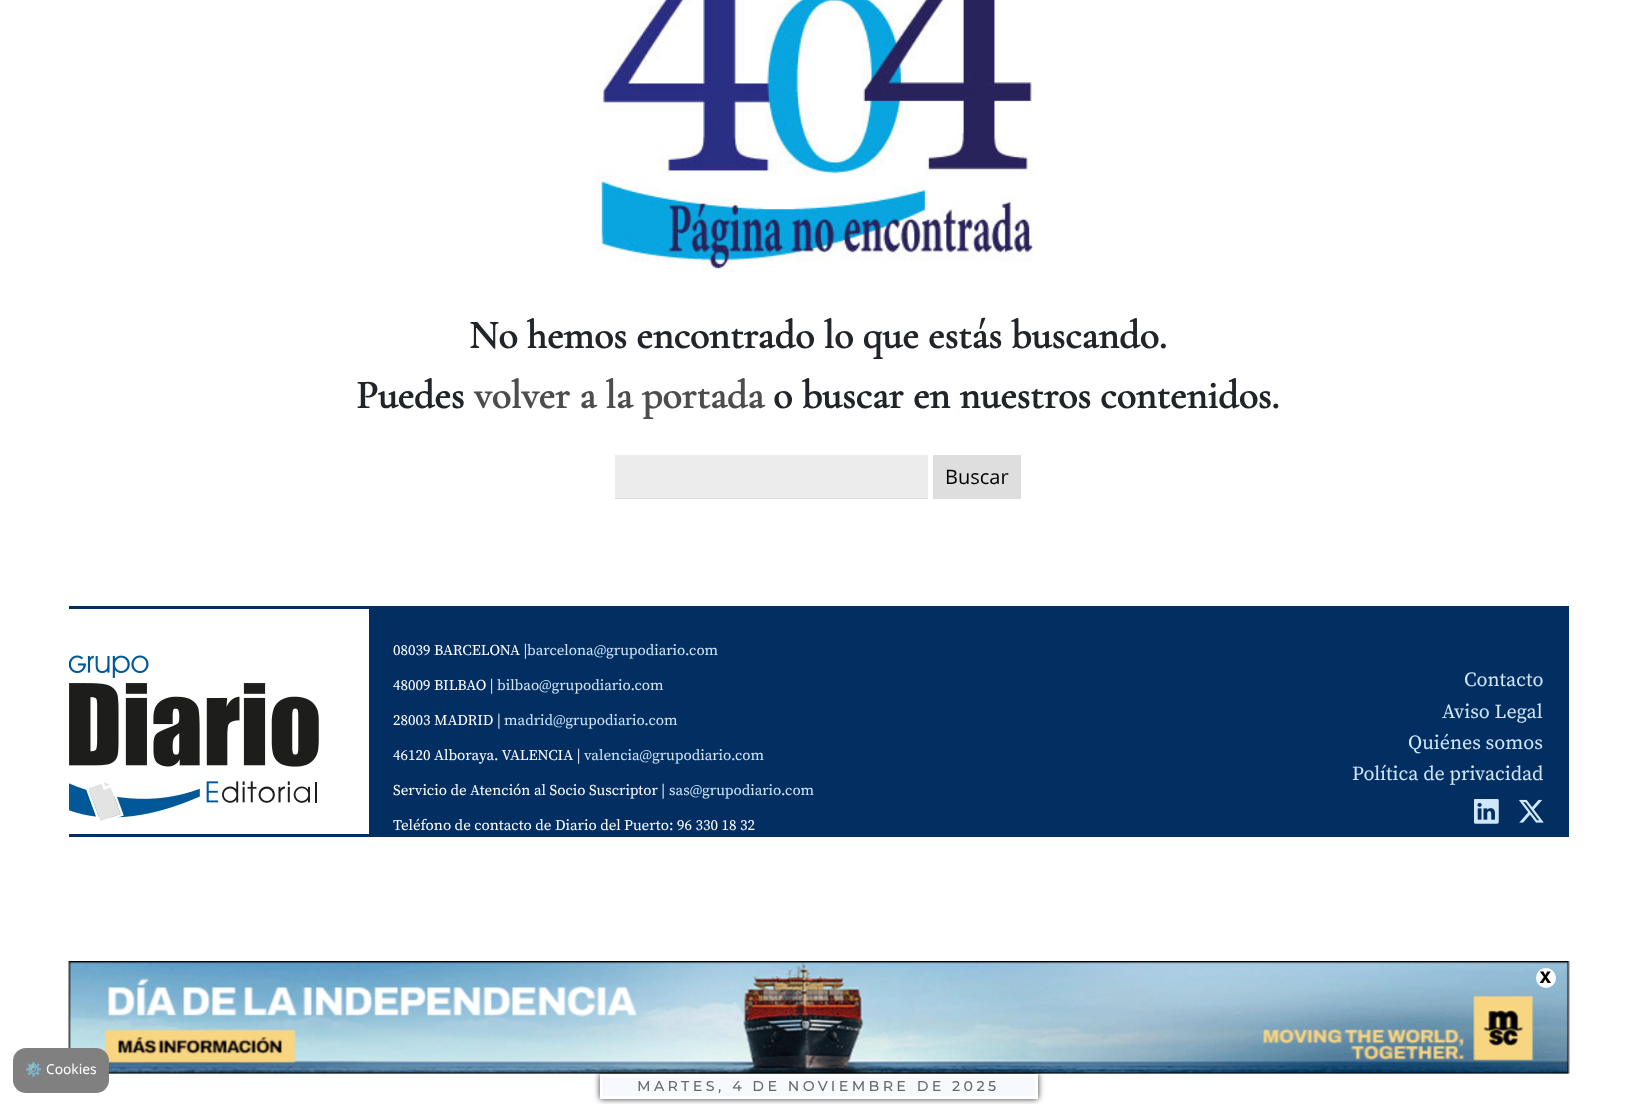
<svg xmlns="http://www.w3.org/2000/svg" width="1636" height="1104">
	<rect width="100%" height="100%" fill="#FFFFFF" />
	<image x="595" y="0" width="439" height="272" href="assets/img1.png" />
	<g font-family="Cormorant Garamond" font-size="40" font-weight="700" fill="#212529">
		<text x="469" y="348">No hemos encontrado lo que estás buscando.</text>
		<text x="356" y="408">Puedes</text>
	</g>
	<text x="474" y="408" font-family="Cormorant Garamond" font-size="40" font-weight="700" fill="#4D4D4D">volver a la portada</text>
	<text x="773" y="408" font-family="Cormorant Garamond" font-size="40" font-weight="700" fill="#212529">o buscar en nuestros contenidos.</text>
	<rect x="615" y="455" width="313" height="43" fill="#ECECEC" />
	<rect x="615" y="498" width="313" height="1" fill="#DEDEDE" />
	<rect x="933" y="455" width="88" height="44" fill="#DEDEDE" />
	<text x="945" y="484" font-family="Open Sans" font-size="20" fill="#000000">Buscar</text>
	<rect x="69" y="606" width="1500" height="3" fill="#032E62" />
	<rect x="69" y="834" width="1500" height="3" fill="#032E62" />
	<image x="69" y="655" width="250" height="166" href="assets/img2.png" />
	<rect x="369" y="609" width="1200" height="225" fill="#032E62" />
	<text x="393" y="655" font-family="Source Serif Pro" font-size="15" fill="#FFFFFF">08039 BARCELONA |</text>
	<text x="527" y="655" font-family="Source Serif Pro" font-size="15" fill="#CFE7F9">barcelona@grupodiario.com</text>
	<text x="393" y="690" font-family="Source Serif Pro" font-size="15" fill="#FFFFFF">48009 BILBAO |</text>
	<text x="497" y="690" font-family="Source Serif Pro" font-size="15" fill="#CFE7F9">bilbao@grupodiario.com</text>
	<text x="393" y="725" font-family="Source Serif Pro" font-size="15" fill="#FFFFFF">28003 MADRID |</text>
	<text x="504" y="725" font-family="Source Serif Pro" font-size="15" fill="#CFE7F9">madrid@grupodiario.com</text>
	<text x="393" y="760" font-family="Source Serif Pro" font-size="15" fill="#FFFFFF">46120 Alboraya. VALENCIA |</text>
	<text x="584" y="760" font-family="Source Serif Pro" font-size="15" fill="#CFE7F9">valencia@grupodiario.com</text>
	<text x="393" y="795" font-family="Source Serif Pro" font-size="15" fill="#FFFFFF">Servicio de Atención al Socio Suscriptor |</text>
	<text x="669" y="795" font-family="Source Serif Pro" font-size="15" fill="#CFE7F9">sas@grupodiario.com</text>
	<text x="393" y="830" font-family="Source Serif Pro" font-size="15" fill="#FFFFFF">Teléfono de contacto de Diario del Puerto: 96 330 18 32</text>
	<g font-family="Source Serif Pro" font-size="20" fill="#CFE7F9">
		<text x="1464" y="686">Contacto</text>
		<text x="1442" y="718">Aviso Legal</text>
		<text x="1408" y="749">Quiénes somos</text>
		<text x="1352" y="780">Política de privacidad</text>
	</g>
	<image x="1474" y="799" width="25" height="25" href="assets/img3.png" />
	<image x="1519" y="799" width="25" height="24" href="assets/img4.png" />
	<image x="68" y="961" width="1502" height="113" href="assets/img5.png" />
	<rect x="13" y="1048" width="96" height="45" rx="13" fill="#808080" />
	<text x="25" y="1074" font-family="Noto Color Emoji" font-size="13.75" fill="#FFFFFF">⚙</text>
	<text x="46" y="1074" font-family="Noto Sans" font-size="13.75" fill="#FFFFFF">Cookies</text>
	<circle cx="1546" cy="978" r="10" fill="#FFFFFF" />
	<text x="1539" y="983" font-family="DejaVu Sans Mono" font-size="21" font-weight="700" fill="#000000">x</text>
	<rect x="600" y="1074" width="438" height="25" fill="#000000" fill-opacity="0.8" filter="blur(3px)" />
	<rect x="601.5" y="1075.5" width="435" height="22" fill="#F8F8FF" stroke="#FFFFFF" stroke-width="3" />
	<text x="637" y="1091" font-family="Montserrat" font-size="13.75" font-weight="700" letter-spacing="3.75" fill="#696969">MARTES, 4 DE NOVIEMBRE DE 2025</text>
</svg>
